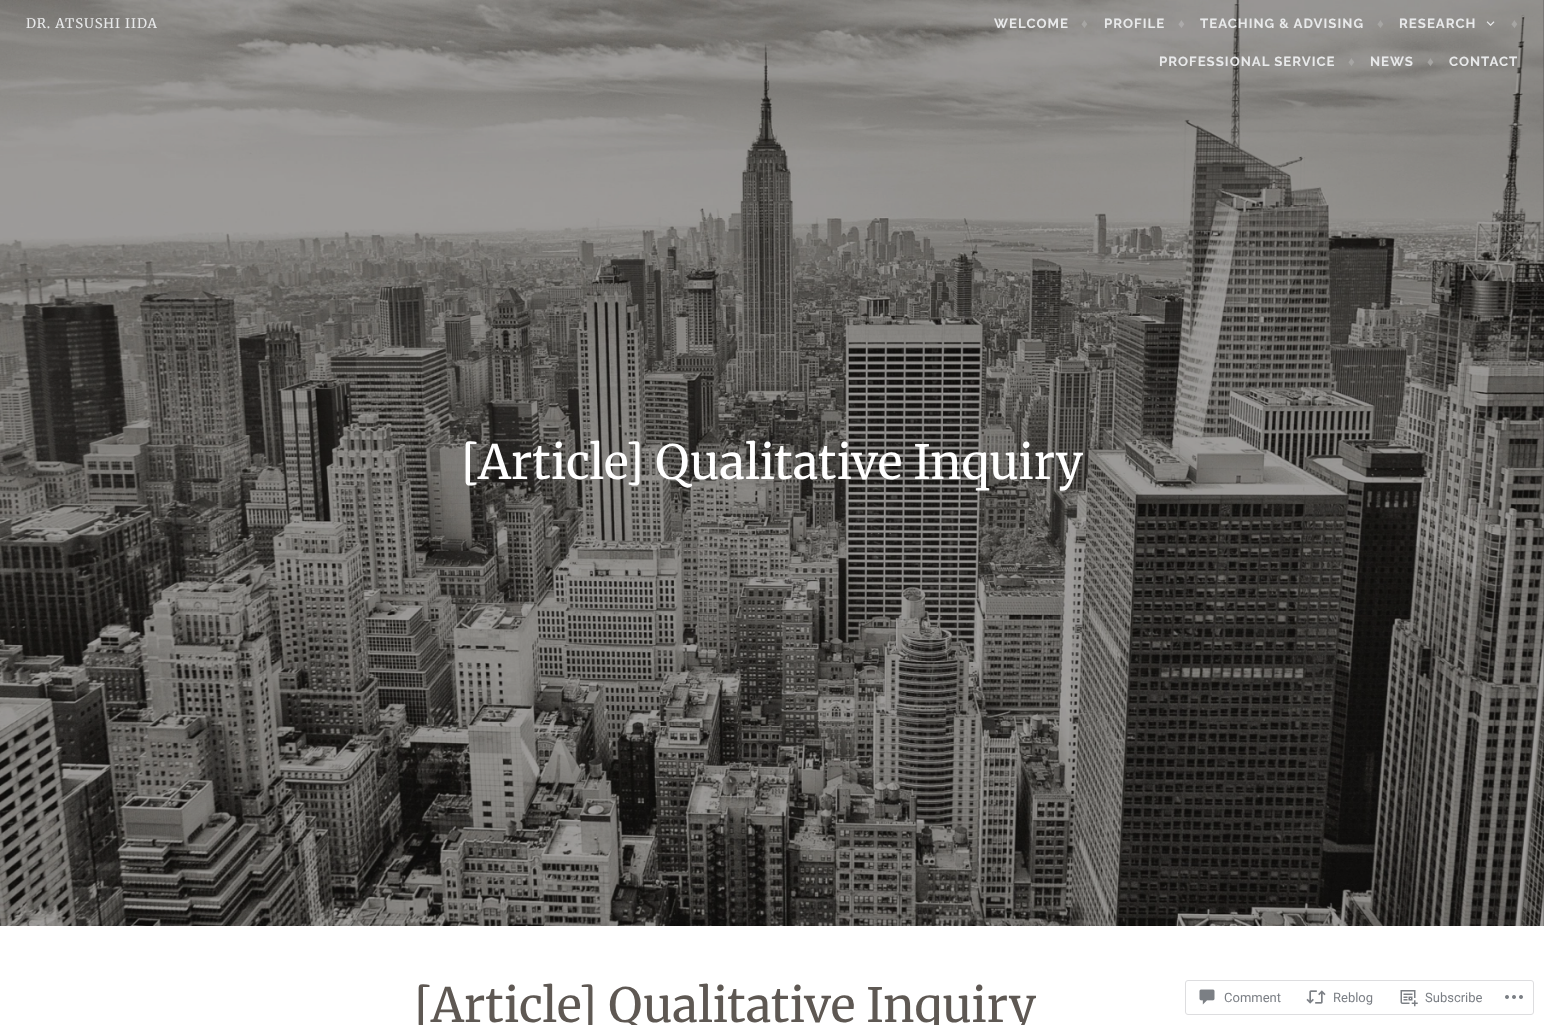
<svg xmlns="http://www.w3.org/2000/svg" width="1544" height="1025">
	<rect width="100%" height="100%" fill="#FFFFFF" />
	<rect x="0" y="0" width="1544" height="926" fill="#1E1C1B" />
	<image x="0" y="0" width="1544" height="926" href="assets/img1.png" />
	<text x="26" y="28" font-family="Merriweather" font-size="13.25" font-weight="300" letter-spacing="1" fill="#E8E9EA">DR. ATSUSHI IIDA</text>
	<text x="994" y="28" font-family="Raleway" font-size="13.25" font-weight="700" letter-spacing="1" fill="#E8E9EA">WELCOME</text>
	<text x="1081" y="28" font-family="Liberation Sans" font-size="13.25" font-weight="700" letter-spacing="1" fill="#A6A5A3">♦</text>
	<text x="1104" y="28" font-family="Raleway" font-size="13.25" font-weight="700" letter-spacing="1" fill="#E8E9EA">PROFILE</text>
	<text x="1178" y="28" font-family="Liberation Sans" font-size="13.25" font-weight="700" letter-spacing="1" fill="#ACAAAA">♦</text>
	<text x="1200" y="28" font-family="Raleway" font-size="13.25" font-weight="700" letter-spacing="1" fill="#E8E9EA">TEACHING &amp; ADVISING</text>
	<text x="1377" y="28" font-family="Liberation Sans" font-size="13.25" font-weight="700" letter-spacing="1" fill="#A6A5A3">♦</text>
	<text x="1399" y="28" font-family="Raleway" font-size="13.25" font-weight="700" letter-spacing="1" fill="#E8E9EA">RESEARCH</text>
	<image x="1486" y="21" width="9" height="5" href="assets/img2.png" />
	<text x="1511" y="28" font-family="Liberation Sans" font-size="13.25" font-weight="700" letter-spacing="1" fill="#A6A5A3">♦</text>
	<text x="1159" y="66" font-family="Raleway" font-size="13.25" font-weight="700" letter-spacing="1" fill="#E8E9EA">PROFESSIONAL SERVICE</text>
	<text x="1348" y="66" font-family="Liberation Sans" font-size="13.25" font-weight="700" letter-spacing="1" fill="#A6A5A3">♦</text>
	<text x="1370" y="66" font-family="Raleway" font-size="13.25" font-weight="700" letter-spacing="1" fill="#E8E9EA">NEWS</text>
	<text x="1427" y="66" font-family="Liberation Sans" font-size="13.25" font-weight="700" letter-spacing="1" fill="#A6A5A3">♦</text>
	<text x="1449" y="66" font-family="Raleway" font-size="13.25" font-weight="700" letter-spacing="1" fill="#E8E9EA">CONTACT</text>
	<text x="461" y="479" font-family="Merriweather" font-size="47.1" font-weight="300" fill="#FFFFFF">[Article] Qualitative Inquiry</text>
	<text x="414" y="1022" font-family="Merriweather" font-size="47.1" font-weight="300" fill="#5E5853">[Article] Qualitative Inquiry</text>
	<rect x="1185.5" y="980.5" width="348" height="34" rx="2.5" fill="none" stroke="#DDDDDF" />
	<image x="1199" y="989" width="16" height="16" href="assets/img3.png" />
	<text x="1224" y="1002" font-family="Roboto" font-size="13" fill="#7B7F85">Comment</text>
	<image x="1306" y="990" width="20" height="14" href="assets/img4.png" />
	<text x="1333" y="1002" font-family="Roboto" font-size="13" fill="#7B7F85">Reblog</text>
	<image x="1400" y="990" width="18" height="17" href="assets/img5.png" />
	<text x="1425" y="1002" font-family="Roboto" font-size="13" fill="#7B7F85">Subscribe</text>
	<image x="1505" y="995" width="18" height="4" href="assets/img6.png" />
</svg>
